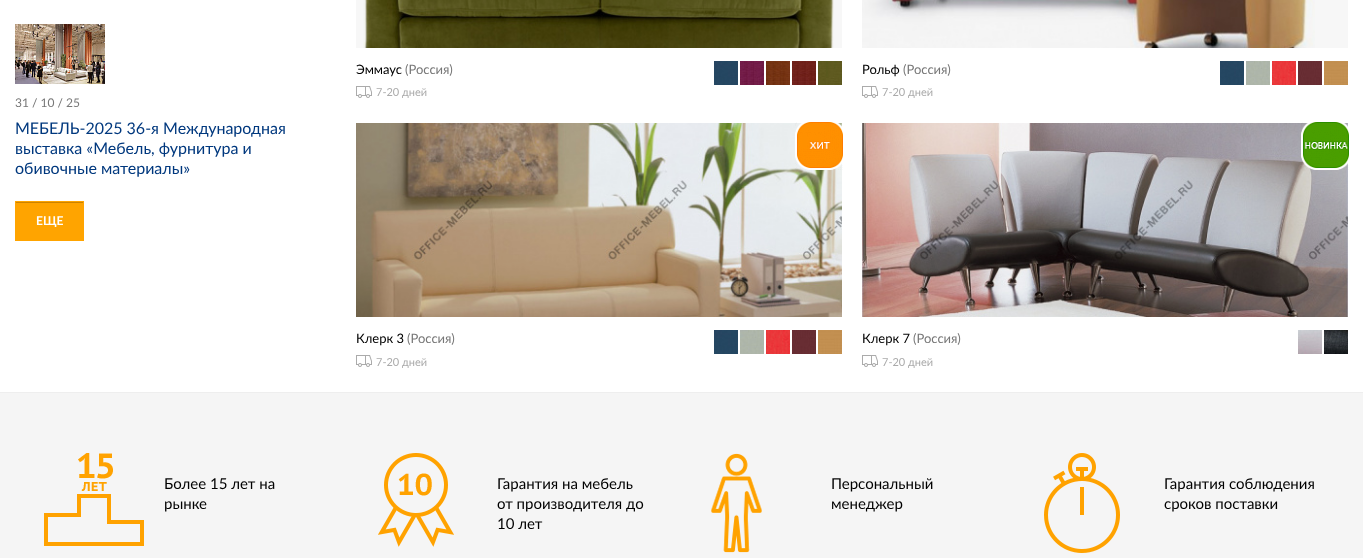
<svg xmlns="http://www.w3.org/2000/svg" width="1363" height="558">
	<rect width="100%" height="100%" fill="#FFFFFF" />
	<rect x="1315" y="0" width="33" height="48" fill="#F7F7F7" />
	<rect x="356" y="0" width="486" height="48" fill="#F7F7F7" />
	<image x="15" y="24" width="90" height="60" href="assets/img1.png" />
	<text x="15" y="107" font-family="Lato" font-size="12" fill="#777777">31 / 10 / 25</text>
	<g font-family="Lato" font-size="16" fill="#00387E">
		<text x="15" y="134">МЕБЕЛЬ-2025 36-я Международная</text>
		<text x="15" y="154">выставка «Мебель, фурнитура и</text>
		<text x="15" y="174">обивочные материалы»</text>
	</g>
	<rect x="15" y="201" width="69" height="40" fill="#FFA400" />
	<rect x="16" y="202" width="67" height="1" fill="#CC8300" />
	<text x="36" y="225" font-family="Lato" font-size="12" font-weight="700" fill="#FFFFFF">ЕЩЕ</text>
	<image x="363" y="0" width="471" height="48" href="assets/img2.png" />
	<text x="356" y="74" font-family="Lato" font-size="13" fill="#000000">Эммаус</text>
	<text x="405" y="74" font-family="Lato" font-size="13" fill="#777777">(Россия)</text>
	<image x="356" y="86" width="16" height="12" href="assets/img3.png" />
	<text x="376" y="96" font-family="Lato" font-size="11" fill="#AAAAAA">7-20 дней</text>
	<image x="714" y="61" width="24" height="24" href="assets/img4.png" />
	<image x="740" y="61" width="24" height="24" href="assets/img5.png" />
	<image x="766" y="61" width="24" height="24" href="assets/img6.png" />
	<image x="792" y="61" width="24" height="24" href="assets/img7.png" />
	<image x="818" y="61" width="24" height="24" href="assets/img8.png" />
	<image x="862" y="0" width="453" height="48" href="assets/img9.png" />
	<text x="862" y="74" font-family="Lato" font-size="13" fill="#000000">Рольф</text>
	<text x="903" y="74" font-family="Lato" font-size="13" fill="#777777">(Россия)</text>
	<image x="862" y="86" width="16" height="12" href="assets/img3.png" />
	<text x="882" y="96" font-family="Lato" font-size="11" fill="#AAAAAA">7-20 дней</text>
	<image x="1220" y="61" width="24" height="24" href="assets/img4.png" />
	<image x="1246" y="61" width="24" height="24" href="assets/img10.png" />
	<image x="1272" y="61" width="24" height="24" href="assets/img11.png" />
	<image x="1298" y="61" width="24" height="24" href="assets/img12.png" />
	<image x="1324" y="61" width="24" height="24" href="assets/img13.png" />
	<image x="356" y="123" width="486" height="194" href="assets/img15.png" />
	<image x="795" y="122" width="48" height="48" href="assets/img14.png" />
	<text x="356" y="343" font-family="Lato" font-size="13" fill="#000000">Клерк 3</text>
	<text x="407" y="343" font-family="Lato" font-size="13" fill="#777777">(Россия)</text>
	<image x="356" y="355" width="16" height="12" href="assets/img3.png" />
	<text x="376" y="366" font-family="Lato" font-size="11" fill="#AAAAAA">7-20 дней</text>
	<image x="714" y="330" width="24" height="24" href="assets/img4.png" />
	<image x="740" y="330" width="24" height="24" href="assets/img10.png" />
	<image x="766" y="330" width="24" height="24" href="assets/img11.png" />
	<image x="792" y="330" width="24" height="24" href="assets/img12.png" />
	<image x="818" y="330" width="24" height="24" href="assets/img13.png" />
	<image x="862" y="123" width="486" height="194" href="assets/img17.png" />
	<image x="1301" y="122" width="48" height="48" href="assets/img16.png" />
	<text x="862" y="343" font-family="Lato" font-size="13" fill="#000000">Клерк 7</text>
	<text x="913" y="343" font-family="Lato" font-size="13" fill="#777777">(Россия)</text>
	<image x="862" y="355" width="16" height="12" href="assets/img3.png" />
	<text x="882" y="366" font-family="Lato" font-size="11" fill="#AAAAAA">7-20 дней</text>
	<image x="1298" y="330" width="24" height="24" href="assets/img18.png" />
	<image x="1324" y="330" width="24" height="24" href="assets/img19.png" />
	<rect x="0" y="393" width="1363" height="165" fill="#F5F5F5" />
	<rect x="0" y="392" width="1363" height="1" fill="#EEEEEE" />
	<image x="44" y="453" width="100" height="93" href="assets/img20.png" />
	<g font-family="Lato" font-size="15" fill="#000000">
		<text x="164" y="489">Более 15 лет на</text>
		<text x="164" y="509">рынке</text>
	</g>
	<image x="378" y="453" width="76" height="94" href="assets/img21.png" />
	<g font-family="Lato" font-size="15" fill="#000000">
		<text x="497" y="489">Гарантия на мебель</text>
		<text x="497" y="509">от производителя до</text>
		<text x="497" y="529">10 лет</text>
	</g>
	<image x="711" y="453" width="51" height="100" href="assets/img22.png" />
	<g font-family="Lato" font-size="15" fill="#000000">
		<text x="831" y="489">Персональный</text>
		<text x="831" y="509">менеджер</text>
	</g>
	<image x="1044" y="453" width="76" height="100" href="assets/img23.png" />
	<g font-family="Lato" font-size="15" fill="#000000">
		<text x="1164" y="489">Гарантия соблюдения</text>
		<text x="1164" y="509">сроков поставки</text>
	</g>
</svg>
